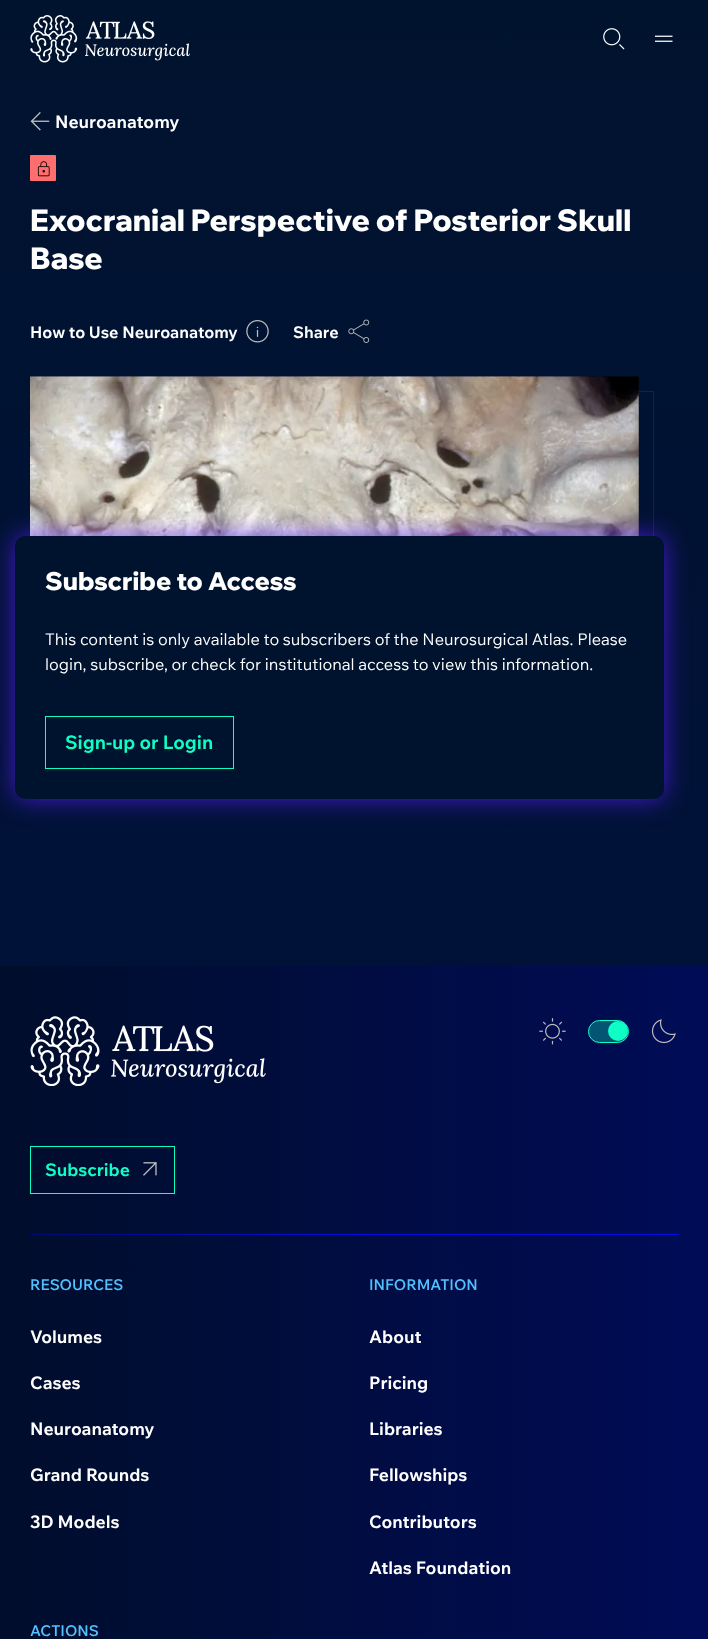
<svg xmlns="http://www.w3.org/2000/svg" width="708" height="1639">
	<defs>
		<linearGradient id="g1" gradientUnits="userSpaceOnUse" x1="354" y1="0" x2="354" y2="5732"><stop offset="0" stop-color="#00132E" /><stop offset="1" stop-color="#000B6E" /></linearGradient>
		<linearGradient id="g2" gradientUnits="userSpaceOnUse" x1="-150" y1="1563" x2="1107" y2="1563"><stop offset="0" stop-color="#000E23" /><stop offset="1" stop-color="#000B6E" /></linearGradient>
		<linearGradient id="g3" gradientUnits="userSpaceOnUse" x1="30" y1="1234" x2="679" y2="1234"><stop offset="0" stop-color="#000B6E" /><stop offset="0.5" stop-color="#000EE1" /></linearGradient>
	</defs>
	<rect width="100%" height="100%" fill="#FFFFFF" />
	<rect x="0" y="0" width="708" height="966" fill="url(#g1)" />
	<image x="30" y="15" width="160" height="48" href="assets/img1.png" />
	<image x="603" y="28" width="22" height="22" href="assets/img2.png" />
	<image x="655" y="35" width="18" height="7" href="assets/img3.png" />
	<image x="30" y="112" width="20" height="19" href="assets/img4.png" />
	<text x="55" y="128" font-family="Wix Madefor Text" font-size="17.5" font-weight="700" fill="#FFFFFF">Neuroanatomy</text>
	<rect x="30" y="155" width="26" height="26" rx="1" fill="#FF6E6E" />
	<image x="37" y="161" width="13" height="16" href="assets/img5.png" />
	<g font-family="Wix Madefor Display" font-size="30" font-weight="800" fill="#FFFFFF">
		<text x="30" y="231">Exocranial Perspective of Posterior Skull</text>
		<text x="30" y="269">Base</text>
	</g>
	<text x="30" y="338" font-family="Wix Madefor Text" font-size="16.25" font-weight="700" fill="#FFFFFF">How to Use Neuroanatomy</text>
	<image x="246" y="320" width="23" height="23" href="assets/img6.png" />
	<text x="293" y="338" font-family="Wix Madefor Text" font-size="16.25" font-weight="700" fill="#FFFFFF">Share</text>
	<image x="348" y="319" width="22" height="24" href="assets/img7.png" />
	<rect x="45.5" y="391.5" width="608" height="399" fill="none" stroke="#000EE1" />
	<image x="30" y="376" width="609" height="160" href="assets/img8.png" />
	<rect x="15" y="536" width="649" height="263" rx="10" fill="#551CF7" fill-opacity="0.8" filter="blur(12.5px)" />
	<rect x="15" y="536" width="649" height="263" rx="10" fill="#00132E" />
	<text x="45" y="590" font-family="Wix Madefor Display" font-size="25" font-weight="800" fill="#FFFFFF">Subscribe to Access</text>
	<g font-family="Wix Madefor Text" font-size="16.25" fill="#FFFFFF">
		<text x="45" y="645">This content is only available to subscribers of the Neurosurgical Atlas. Please</text>
		<text x="45" y="670">login, subscribe, or check for institutional access to view this information.</text>
	</g>
	<rect x="45.5" y="716.5" width="188" height="52" fill="none" stroke="#0DFFC5" />
	<text x="65" y="749" font-family="Wix Madefor Text" font-size="18.75" font-weight="700" fill="#0DFFC5">Sign-up or Login</text>
	<rect x="0" y="966" width="708" height="673" fill="url(#g2)" />
	<image x="30" y="1016" width="236" height="70" href="assets/img9.png" />
	<image x="539" y="1018" width="27" height="27" href="assets/img10.png" />
	<rect x="588.5" y="1020.5" width="40" height="22" rx="11" fill="#045573" stroke="#0DFFC5" />
	<circle cx="618" cy="1031" r="10" fill="#0DFFC5" />
	<image x="651" y="1019" width="25" height="25" href="assets/img11.png" />
	<image x="143" y="1162" width="14" height="14" href="assets/img12.png" />
	<rect x="30.5" y="1146.5" width="144" height="47" fill="none" stroke="#0DFFC5" />
	<text x="45" y="1176" font-family="Wix Madefor Text" font-size="17.5" font-weight="700" fill="#0DFFC5">Subscribe</text>
	<rect x="30" y="1234" width="649" height="1" fill="url(#g3)" />
	<text x="30" y="1290" font-family="Wix Madefor Text" font-size="15" font-weight="600" fill="#52C1FF">RESOURCES</text>
	<g font-family="Wix Madefor Text" font-size="17.5" font-weight="700" fill="#FFFFFF">
		<text x="30" y="1343">Volumes</text>
		<text x="30" y="1389">Cases</text>
		<text x="30" y="1435">Neuroanatomy</text>
		<text x="30" y="1481">Grand Rounds</text>
		<text x="30" y="1528">3D Models</text>
	</g>
	<text x="369" y="1290" font-family="Wix Madefor Text" font-size="15" font-weight="600" fill="#52C1FF">INFORMATION</text>
	<g font-family="Wix Madefor Text" font-size="17.5" font-weight="700" fill="#FFFFFF">
		<text x="369" y="1343">About</text>
		<text x="369" y="1389">Pricing</text>
		<text x="369" y="1435">Libraries</text>
		<text x="369" y="1481">Fellowships</text>
		<text x="369" y="1528">Contributors</text>
		<text x="369" y="1574">Atlas Foundation</text>
	</g>
	<text x="30" y="1636" font-family="Wix Madefor Text" font-size="15" font-weight="600" fill="#52C1FF">ACTIONS</text>
</svg>
